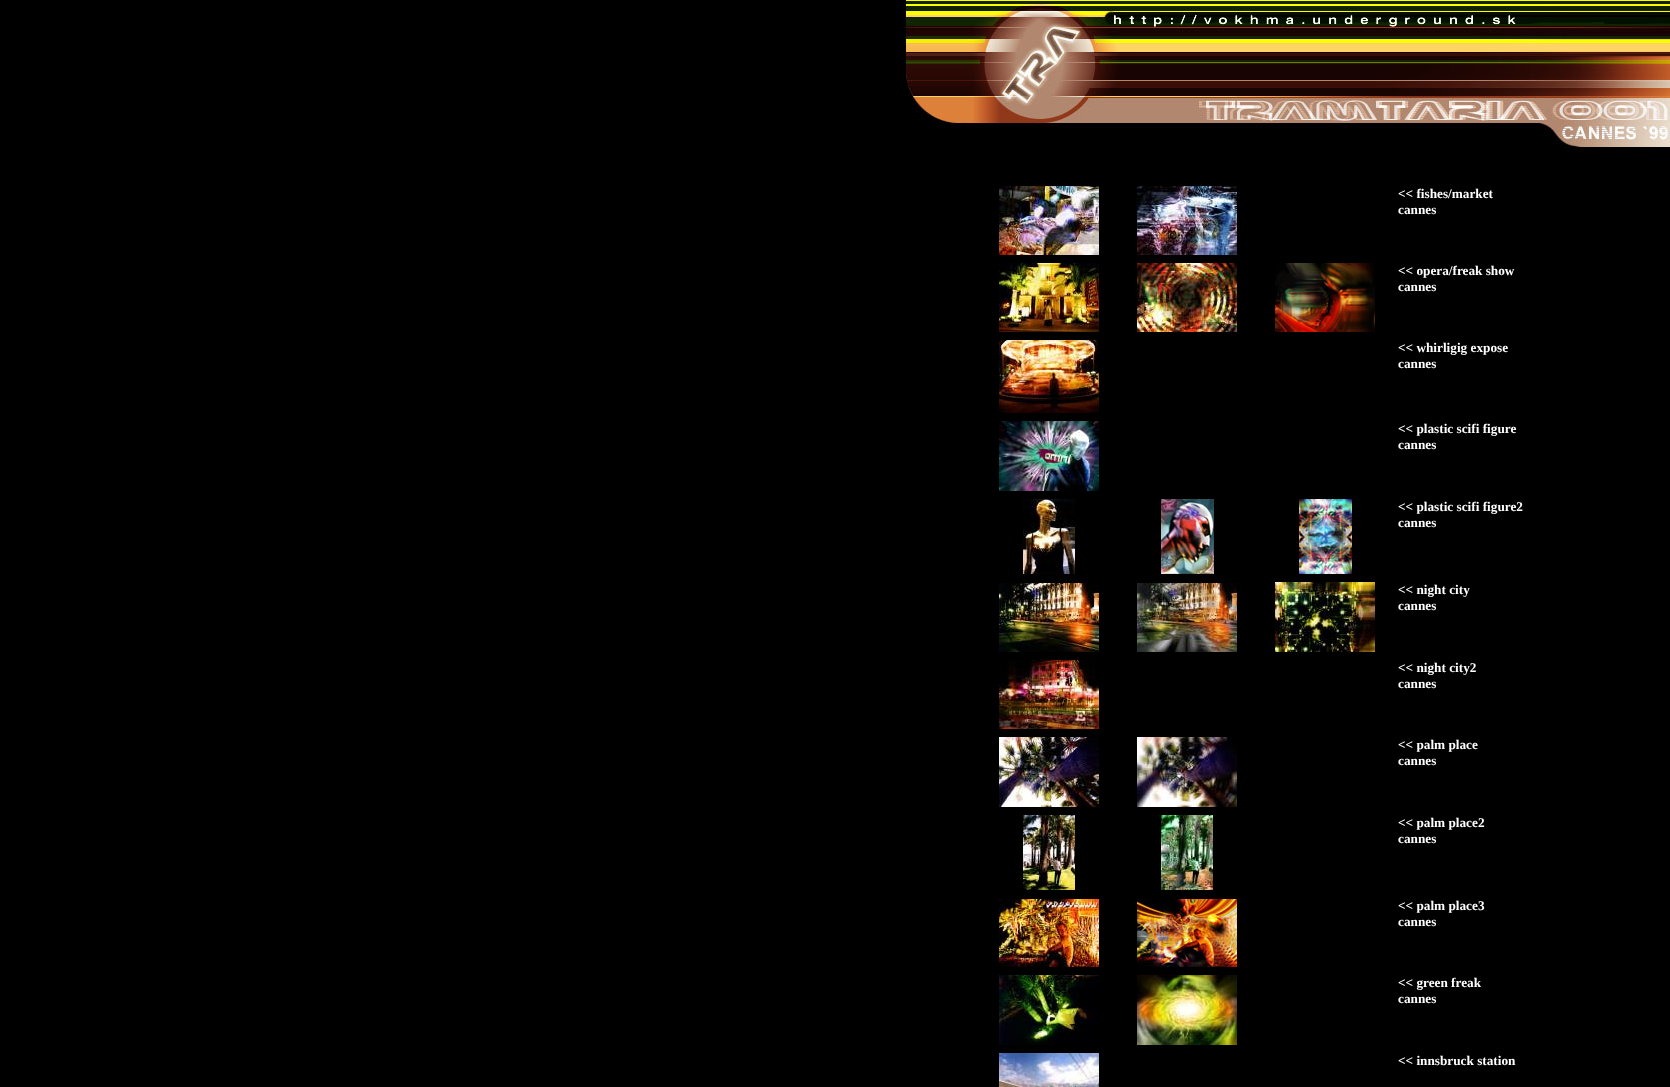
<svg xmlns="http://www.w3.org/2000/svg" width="1670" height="1087">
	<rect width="100%" height="100%" fill="#000000" />
	<image x="905" y="0" width="765" height="148" href="assets/img1.png" />
	<image x="999" y="186" width="100" height="69" href="assets/img2.png" />
	<image x="1137" y="186" width="100" height="69" href="assets/img3.png" />
	<g font-family="Liberation Serif" font-size="13.25" font-weight="700" fill="#FFFFFF">
		<text x="1398" y="198">&lt;&lt; fishes/market</text>
		<text x="1398" y="214">cannes</text>
	</g>
	<image x="999" y="263" width="100" height="69" href="assets/img4.png" />
	<image x="1137" y="263" width="100" height="69" href="assets/img5.png" />
	<image x="1275" y="263" width="100" height="69" href="assets/img6.png" />
	<g font-family="Liberation Serif" font-size="13.25" font-weight="700" fill="#FFFFFF">
		<text x="1398" y="275">&lt;&lt; opera/freak show</text>
		<text x="1398" y="291">cannes</text>
	</g>
	<image x="999" y="340" width="100" height="73" href="assets/img7.png" />
	<g font-family="Liberation Serif" font-size="13.25" font-weight="700" fill="#FFFFFF">
		<text x="1398" y="352">&lt;&lt; whirligig expose</text>
		<text x="1398" y="368">cannes</text>
	</g>
	<image x="999" y="421" width="100" height="70" href="assets/img8.png" />
	<g font-family="Liberation Serif" font-size="13.25" font-weight="700" fill="#FFFFFF">
		<text x="1398" y="433">&lt;&lt; plastic scifi figure</text>
		<text x="1398" y="449">cannes</text>
	</g>
	<image x="1023" y="499" width="52" height="75" href="assets/img9.png" />
	<image x="1161" y="499" width="53" height="75" href="assets/img10.png" />
	<image x="1299" y="499" width="53" height="75" href="assets/img11.png" />
	<g font-family="Liberation Serif" font-size="13.25" font-weight="700" fill="#FFFFFF">
		<text x="1398" y="511">&lt;&lt; plastic scifi figure2</text>
		<text x="1398" y="527">cannes</text>
	</g>
	<image x="999" y="583" width="100" height="69" href="assets/img12.png" />
	<image x="1137" y="583" width="100" height="69" href="assets/img13.png" />
	<image x="1275" y="582" width="100" height="70" href="assets/img14.png" />
	<g font-family="Liberation Serif" font-size="13.25" font-weight="700" fill="#FFFFFF">
		<text x="1398" y="594">&lt;&lt; night city</text>
		<text x="1398" y="610">cannes</text>
	</g>
	<image x="999" y="660" width="100" height="69" href="assets/img15.png" />
	<g font-family="Liberation Serif" font-size="13.25" font-weight="700" fill="#FFFFFF">
		<text x="1398" y="672">&lt;&lt; night city2</text>
		<text x="1398" y="688">cannes</text>
	</g>
	<image x="999" y="737" width="100" height="70" href="assets/img16.png" />
	<image x="1137" y="737" width="100" height="70" href="assets/img17.png" />
	<g font-family="Liberation Serif" font-size="13.25" font-weight="700" fill="#FFFFFF">
		<text x="1398" y="749">&lt;&lt; palm place</text>
		<text x="1398" y="765">cannes</text>
	</g>
	<image x="1023" y="815" width="52" height="75" href="assets/img18.png" />
	<image x="1161" y="815" width="52" height="75" href="assets/img19.png" />
	<g font-family="Liberation Serif" font-size="13.25" font-weight="700" fill="#FFFFFF">
		<text x="1398" y="827">&lt;&lt; palm place2</text>
		<text x="1398" y="843">cannes</text>
	</g>
	<image x="999" y="899" width="100" height="68" href="assets/img20.png" />
	<image x="1137" y="899" width="100" height="68" href="assets/img21.png" />
	<g font-family="Liberation Serif" font-size="13.25" font-weight="700" fill="#FFFFFF">
		<text x="1398" y="910">&lt;&lt; palm place3</text>
		<text x="1398" y="926">cannes</text>
	</g>
	<image x="999" y="975" width="100" height="70" href="assets/img22.png" />
	<image x="1137" y="975" width="100" height="70" href="assets/img23.png" />
	<g font-family="Liberation Serif" font-size="13.25" font-weight="700" fill="#FFFFFF">
		<text x="1398" y="987">&lt;&lt; green freak</text>
		<text x="1398" y="1003">cannes</text>
	</g>
	<image x="999" y="1053" width="100" height="34" href="assets/img24.png" />
	<text x="1398" y="1065" font-family="Liberation Serif" font-size="13.25" font-weight="700" fill="#FFFFFF">&lt;&lt; innsbruck station</text>
</svg>
